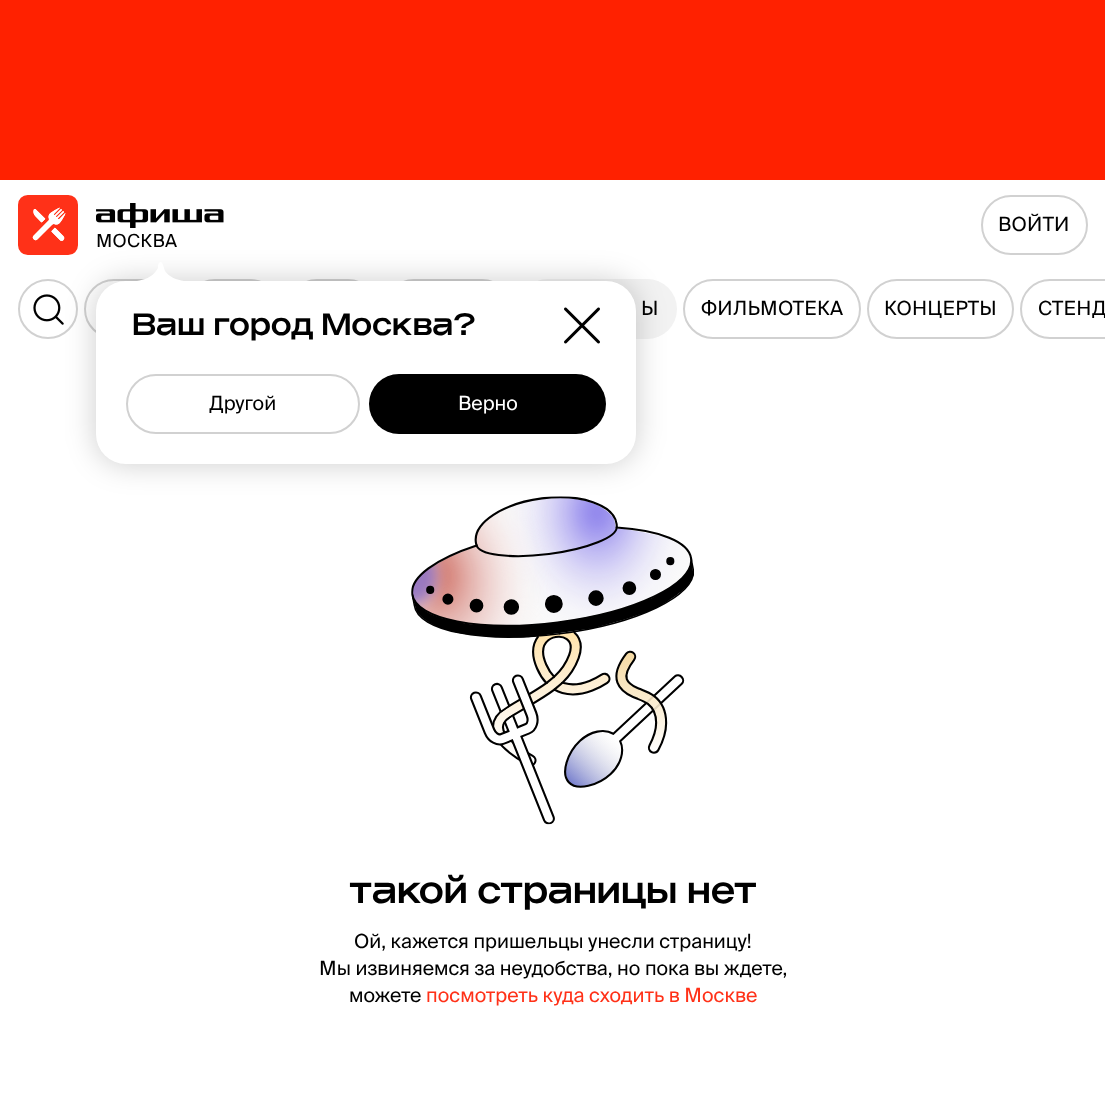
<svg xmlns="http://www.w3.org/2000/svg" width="1105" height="1105">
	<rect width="100%" height="100%" fill="#FF2100" />
	<rect x="0" y="180" width="1105" height="925" fill="#FFFFFF" />
	<rect x="982" y="196" width="105" height="58" rx="29" fill="none" stroke="#D1D1D1" stroke-width="2" />
	<text x="998" y="231" font-family="'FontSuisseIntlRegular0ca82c'" font-size="19.5" letter-spacing="0.25" fill="#000000">ВОЙТИ</text>
	<image x="18" y="195" width="60" height="60" href="assets/img1.png" />
	<image x="96" y="203" width="128" height="25" href="assets/img2.png" />
	<text x="96" y="247" font-family="'FontSuisseIntlRegular0ca82c'" font-size="18" letter-spacing="0.25" fill="#000000">МОСКВА</text>
	<circle cx="48" cy="309" r="29" fill="none" stroke="#D1D1D1" stroke-width="2" />
	<image x="33" y="294" width="31" height="31" href="assets/img3.png" />
	<rect x="85" y="280" width="93" height="58" rx="29" fill="none" stroke="#D1D1D1" stroke-width="2" />
	<rect x="186" y="280" width="94" height="58" rx="29" fill="none" stroke="#D1D1D1" stroke-width="2" />
	<rect x="288" y="280" width="89" height="58" rx="29" fill="none" stroke="#D1D1D1" stroke-width="2" />
	<rect x="385" y="280" width="126" height="58" rx="29" fill="none" stroke="#D1D1D1" stroke-width="2" />
	<rect x="518" y="279" width="159" height="60" rx="30" fill="#F2F2F2" />
	<text x="641" y="315" font-family="'FontSuisseIntlRegular0ca82c'" font-size="19.5" letter-spacing="0.25" fill="#000000">Ы</text>
	<rect x="684" y="280" width="176" height="58" rx="29" fill="none" stroke="#D1D1D1" stroke-width="2" />
	<text x="701" y="315" font-family="'FontSuisseIntlRegular0ca82c'" font-size="19.5" letter-spacing="0.25" fill="#000000">ФИЛЬМОТЕКА</text>
	<rect x="868" y="280" width="145" height="58" rx="29" fill="none" stroke="#D1D1D1" stroke-width="2" />
	<text x="884" y="315" font-family="'FontSuisseIntlRegular0ca82c'" font-size="19.5" letter-spacing="0.25" fill="#000000">КОНЦЕРТЫ</text>
	<rect x="1021" y="280" width="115" height="58" rx="29" fill="none" stroke="#D1D1D1" stroke-width="2" />
	<text x="1038" y="315" font-family="'FontSuisseIntlRegular0ca82c'" font-size="19.5" letter-spacing="0.25" fill="#000000">СТЕНД</text>
	<image x="411" y="496" width="283" height="329" href="assets/img4.png" />
	<text x="349" y="903" font-family="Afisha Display" font-size="36" font-weight="500" letter-spacing="-0.4" fill="#000000">такой страницы нет</text>
	<g font-family="'FontSuisseIntlRegular0ca82c'" font-size="19.5" fill="#000000">
		<text x="354" y="948">Ой, кажется пришельцы унесли страницу!</text>
		<text x="319" y="975">Мы извиняемся за неудобства, но пока вы ждете,</text>
		<text x="349" y="1002">можете</text>
	</g>
	<text x="426" y="1002" font-family="'FontSuisseIntlRegular0ca82c'" font-size="19.5" fill="#FF3118">посмотреть куда сходить в Москве</text>
	<rect x="96" y="281" width="540" height="183" rx="30" fill="#000000" fill-opacity="0.2" filter="blur(15px)" />
	<rect x="96" y="281" width="540" height="183" rx="30" fill="#FFFFFF" />
	<path d="M137 281H184C177 280 169 277 165 271L164 268C163 266 163 263 161 262C158 262 158 266 158 268L156 271C152 277 144 280 137 281Z" fill="#FFFFFF" />
	<text x="132" y="335" font-family="Afisha Display" font-size="30" font-weight="500" letter-spacing="-0.25" fill="#000000">Ваш город Москва?</text>
	<image x="564" y="307" width="36" height="37" href="assets/img5.png" />
	<rect x="127" y="375" width="232" height="58" rx="29" fill="none" stroke="#D1D1D1" stroke-width="2" />
	<text x="209" y="410" font-family="'FontSuisseIntlRegular0ca82c'" font-size="19.5" fill="#000000">Другой</text>
	<rect x="369" y="374" width="237" height="60" rx="30" fill="#000000" />
	<text x="458" y="410" font-family="'FontSuisseIntlRegular0ca82c'" font-size="19.5" fill="#FFFFFF">Верно</text>
</svg>
